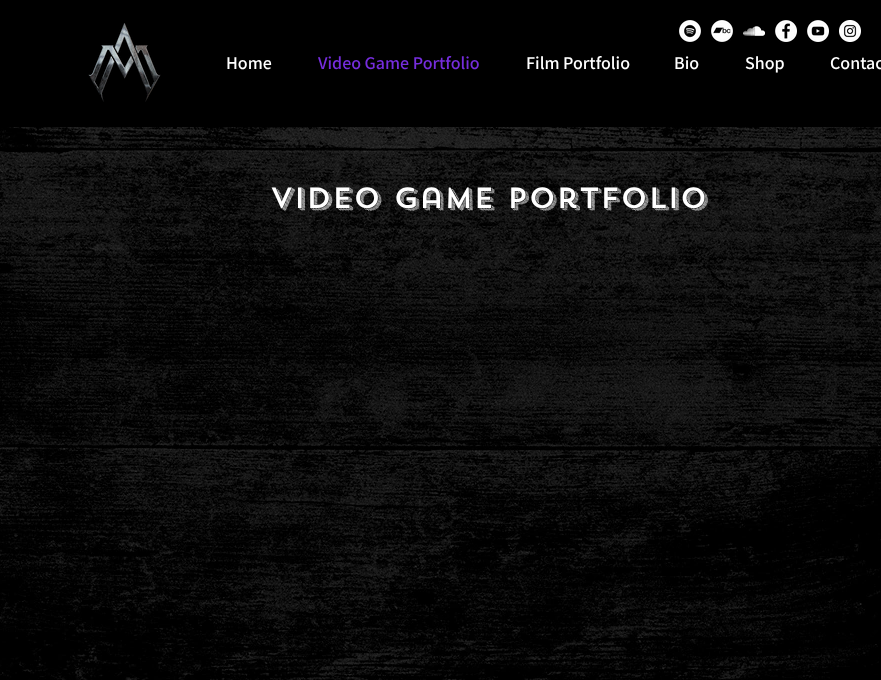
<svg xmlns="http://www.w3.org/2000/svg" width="881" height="680">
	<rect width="100%" height="100%" fill="#000000" />
	<image x="679" y="20" width="22" height="22" href="assets/img1.png" />
	<image x="711" y="20" width="22" height="22" href="assets/img2.png" />
	<image x="743" y="26" width="22" height="10" href="assets/img3.png" />
	<image x="775" y="20" width="22" height="22" href="assets/img4.png" />
	<image x="807" y="20" width="22" height="22" href="assets/img5.png" />
	<image x="839" y="20" width="22" height="22" href="assets/img6.png" />
	<image x="88" y="23" width="73" height="79" href="assets/img7.png" />
	<text x="226" y="69" font-family="Assistant" font-size="18" font-weight="600" fill="#FFFFFF">Home</text>
	<text x="318" y="69" font-family="Assistant" font-size="18" font-weight="600" fill="#762DDD">Video Game Portfolio</text>
	<g font-family="Assistant" font-size="18" font-weight="600" fill="#FFFFFF">
		<text x="526" y="69">Film Portfolio</text>
		<text x="674" y="69">Bio</text>
		<text x="745" y="69">Shop</text>
		<text x="830" y="69">Contac</text>
	</g>
	<image x="0" y="127" width="881" height="553" href="assets/img8.png" />
	<text x="270" y="208" font-family="'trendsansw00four'" font-size="29" font-weight="500" letter-spacing="0.25" fill="#FFFFFF">Video Game portfolio</text>
</svg>
